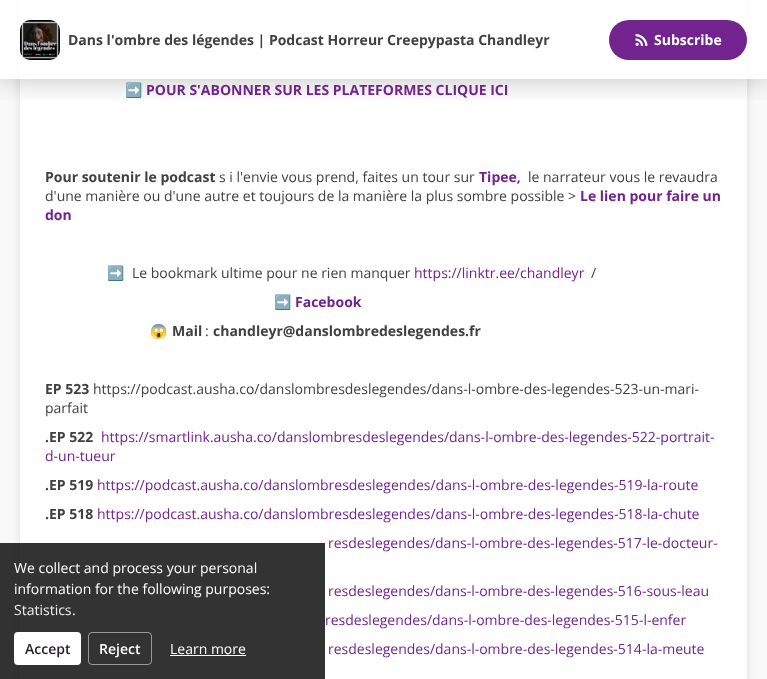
<svg xmlns="http://www.w3.org/2000/svg" width="767" height="679">
	<defs>
		<clipPath id="clip1"><rect x="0" y="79" width="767" height="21" /></clipPath>
	</defs>
	<rect width="100%" height="100%" fill="#F9F9F9" />
	<rect x="20" y="-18" width="727" height="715" rx="3" fill="#000000" fill-opacity="0.1" filter="blur(5px)" />
	<rect x="20" y="0" width="727" height="679" fill="#FFFFFF" />
	<g clip-path="url(#clip1)">
		<rect x="0" y="0" width="767" height="79" fill="#000000" fill-opacity="0.25" filter="blur(15px)" />
	</g>
	<rect x="0" y="0" width="767" height="79" fill="#FFFFFF" fill-opacity="0.88" />
	<image x="20" y="20" width="40" height="40" href="assets/img1.png" />
	<text x="68" y="45" font-family="Open Sans" font-size="14" font-weight="700" fill="#414141">Dans l'ombre des légendes | Podcast Horreur Creepypasta Chandleyr</text>
	<rect x="609" y="20" width="138" height="40" rx="20" fill="#72238E" />
	<image x="635" y="34" width="13" height="12" href="assets/img2.png" />
	<text x="654" y="45" font-family="Open Sans" font-size="14" font-weight="700" fill="#FFFFFF">Subscribe</text>
	<text x="125" y="95" font-family="Noto Color Emoji" font-size="14" fill="#414141">➡️</text>
	<text x="146" y="95" font-family="Open Sans" font-size="14" font-weight="700" fill="#72238E">POUR S'ABONNER SUR LES PLATEFORMES CLIQUE ICI</text>
	<text x="45" y="182" font-family="Open Sans" font-size="14" font-weight="700" fill="#414141">Pour soutenir le podcast</text>
	<text x="219" y="182" font-family="Open Sans" font-size="14" fill="#414141">s i l'envie vous prend, faites un tour sur</text>
	<text x="479" y="182" font-family="Open Sans" font-size="14" font-weight="700" fill="#72238E">Tipee,</text>
	<g font-family="Open Sans" font-size="14" fill="#414141">
		<text x="528" y="182">le narrateur vous le revaudra</text>
		<text x="45" y="201">d'une manière ou d'une autre et toujours de la manière la plus sombre possible &gt;</text>
	</g>
	<g font-family="Open Sans" font-size="14" font-weight="700" fill="#72238E">
		<text x="580" y="201">Le lien pour faire un</text>
		<text x="45" y="220">don</text>
	</g>
	<text x="107" y="278" font-family="Noto Color Emoji" font-size="14" fill="#414141">➡️</text>
	<text x="132" y="278" font-family="Open Sans" font-size="14" fill="#414141">Le bookmark ultime pour ne rien manquer</text>
	<text x="414" y="278" font-family="Open Sans" font-size="14" fill="#72238E">https://linktr.ee/chandleyr</text>
	<text x="591" y="278" font-family="Open Sans" font-size="14" fill="#414141">/</text>
	<text x="274" y="307" font-family="Noto Color Emoji" font-size="14" fill="#414141">➡️</text>
	<text x="295" y="307" font-family="Open Sans" font-size="14" font-weight="700" fill="#72238E">Facebook</text>
	<text x="150" y="336" font-family="Noto Color Emoji" font-size="14" fill="#414141">😱</text>
	<text x="172" y="336" font-family="Open Sans" font-size="14" font-weight="700" fill="#414141">Mail</text>
	<text x="205" y="336" font-family="Open Sans" font-size="14" fill="#414141">:</text>
	<g font-family="Open Sans" font-size="14" font-weight="700" fill="#414141">
		<text x="213" y="336">chandleyr@danslombredeslegendes.fr</text>
		<text x="45" y="394">EP 523</text>
	</g>
	<g font-family="Open Sans" font-size="14" fill="#414141">
		<text x="93" y="394">https://podcast.ausha.co/danslombresdeslegendes/dans-l-ombre-des-legendes-523-un-mari-</text>
		<text x="45" y="413">parfait</text>
	</g>
	<text x="45" y="442" font-family="Open Sans" font-size="14" font-weight="700" fill="#414141">.EP 522</text>
	<g font-family="Open Sans" font-size="14" fill="#72238E">
		<text x="101" y="442">https://smartlink.ausha.co/danslombresdeslegendes/dans-l-ombre-des-legendes-522-portrait-</text>
		<text x="45" y="461">d-un-tueur</text>
	</g>
	<text x="45" y="490" font-family="Open Sans" font-size="14" font-weight="700" fill="#414141">.EP 519</text>
	<text x="97" y="490" font-family="Open Sans" font-size="14" fill="#72238E">https://podcast.ausha.co/danslombresdeslegendes/dans-l-ombre-des-legendes-519-la-route</text>
	<text x="45" y="519" font-family="Open Sans" font-size="14" font-weight="700" fill="#414141">.EP 518</text>
	<g font-family="Open Sans" font-size="14" fill="#72238E">
		<text x="97" y="519">https://podcast.ausha.co/danslombresdeslegendes/dans-l-ombre-des-legendes-518-la-chute</text>
		<text x="328" y="548">resdeslegendes/dans-l-ombre-des-legendes-517-le-docteur-</text>
		<text x="328" y="596">resdeslegendes/dans-l-ombre-des-legendes-516-sous-leau</text>
		<text x="325" y="625">resdeslegendes/dans-l-ombre-des-legendes-515-l-enfer</text>
		<text x="328" y="654">resdeslegendes/dans-l-ombre-des-legendes-514-la-meute</text>
	</g>
	<rect x="0" y="543" width="325" height="136" fill="#000000" fill-opacity="0.8" />
	<g font-family="Open Sans" font-size="14" fill="#FFFFFF">
		<text x="14" y="573">We collect and process your personal</text>
		<text x="14" y="594">information for the following purposes:</text>
	</g>
	<text x="14" y="615" font-family="Open Sans" font-size="14" fill="#EEEEEE">Statistics</text>
	<text x="72" y="615" font-family="Open Sans" font-size="14" fill="#FFFFFF">.</text>
	<rect x="14" y="632" width="67" height="33" rx="4" fill="#FFFFFF" />
	<text x="25" y="654" font-family="Open Sans" font-size="14" font-weight="600" fill="#26212B">Accept</text>
	<rect x="88.5" y="632.5" width="63" height="32" rx="3.5" fill="none" stroke="#FFFFFF" stroke-opacity="0.5" />
	<text x="99" y="654" font-family="Open Sans" font-size="14" font-weight="600" fill="#FFFFFF">Reject</text>
	<text x="170" y="654" font-family="Open Sans" font-size="14" fill="#FFFFFF">Learn more</text>
	<rect x="170" y="655" width="76" height="1" fill="#FFFFFF" />
</svg>
